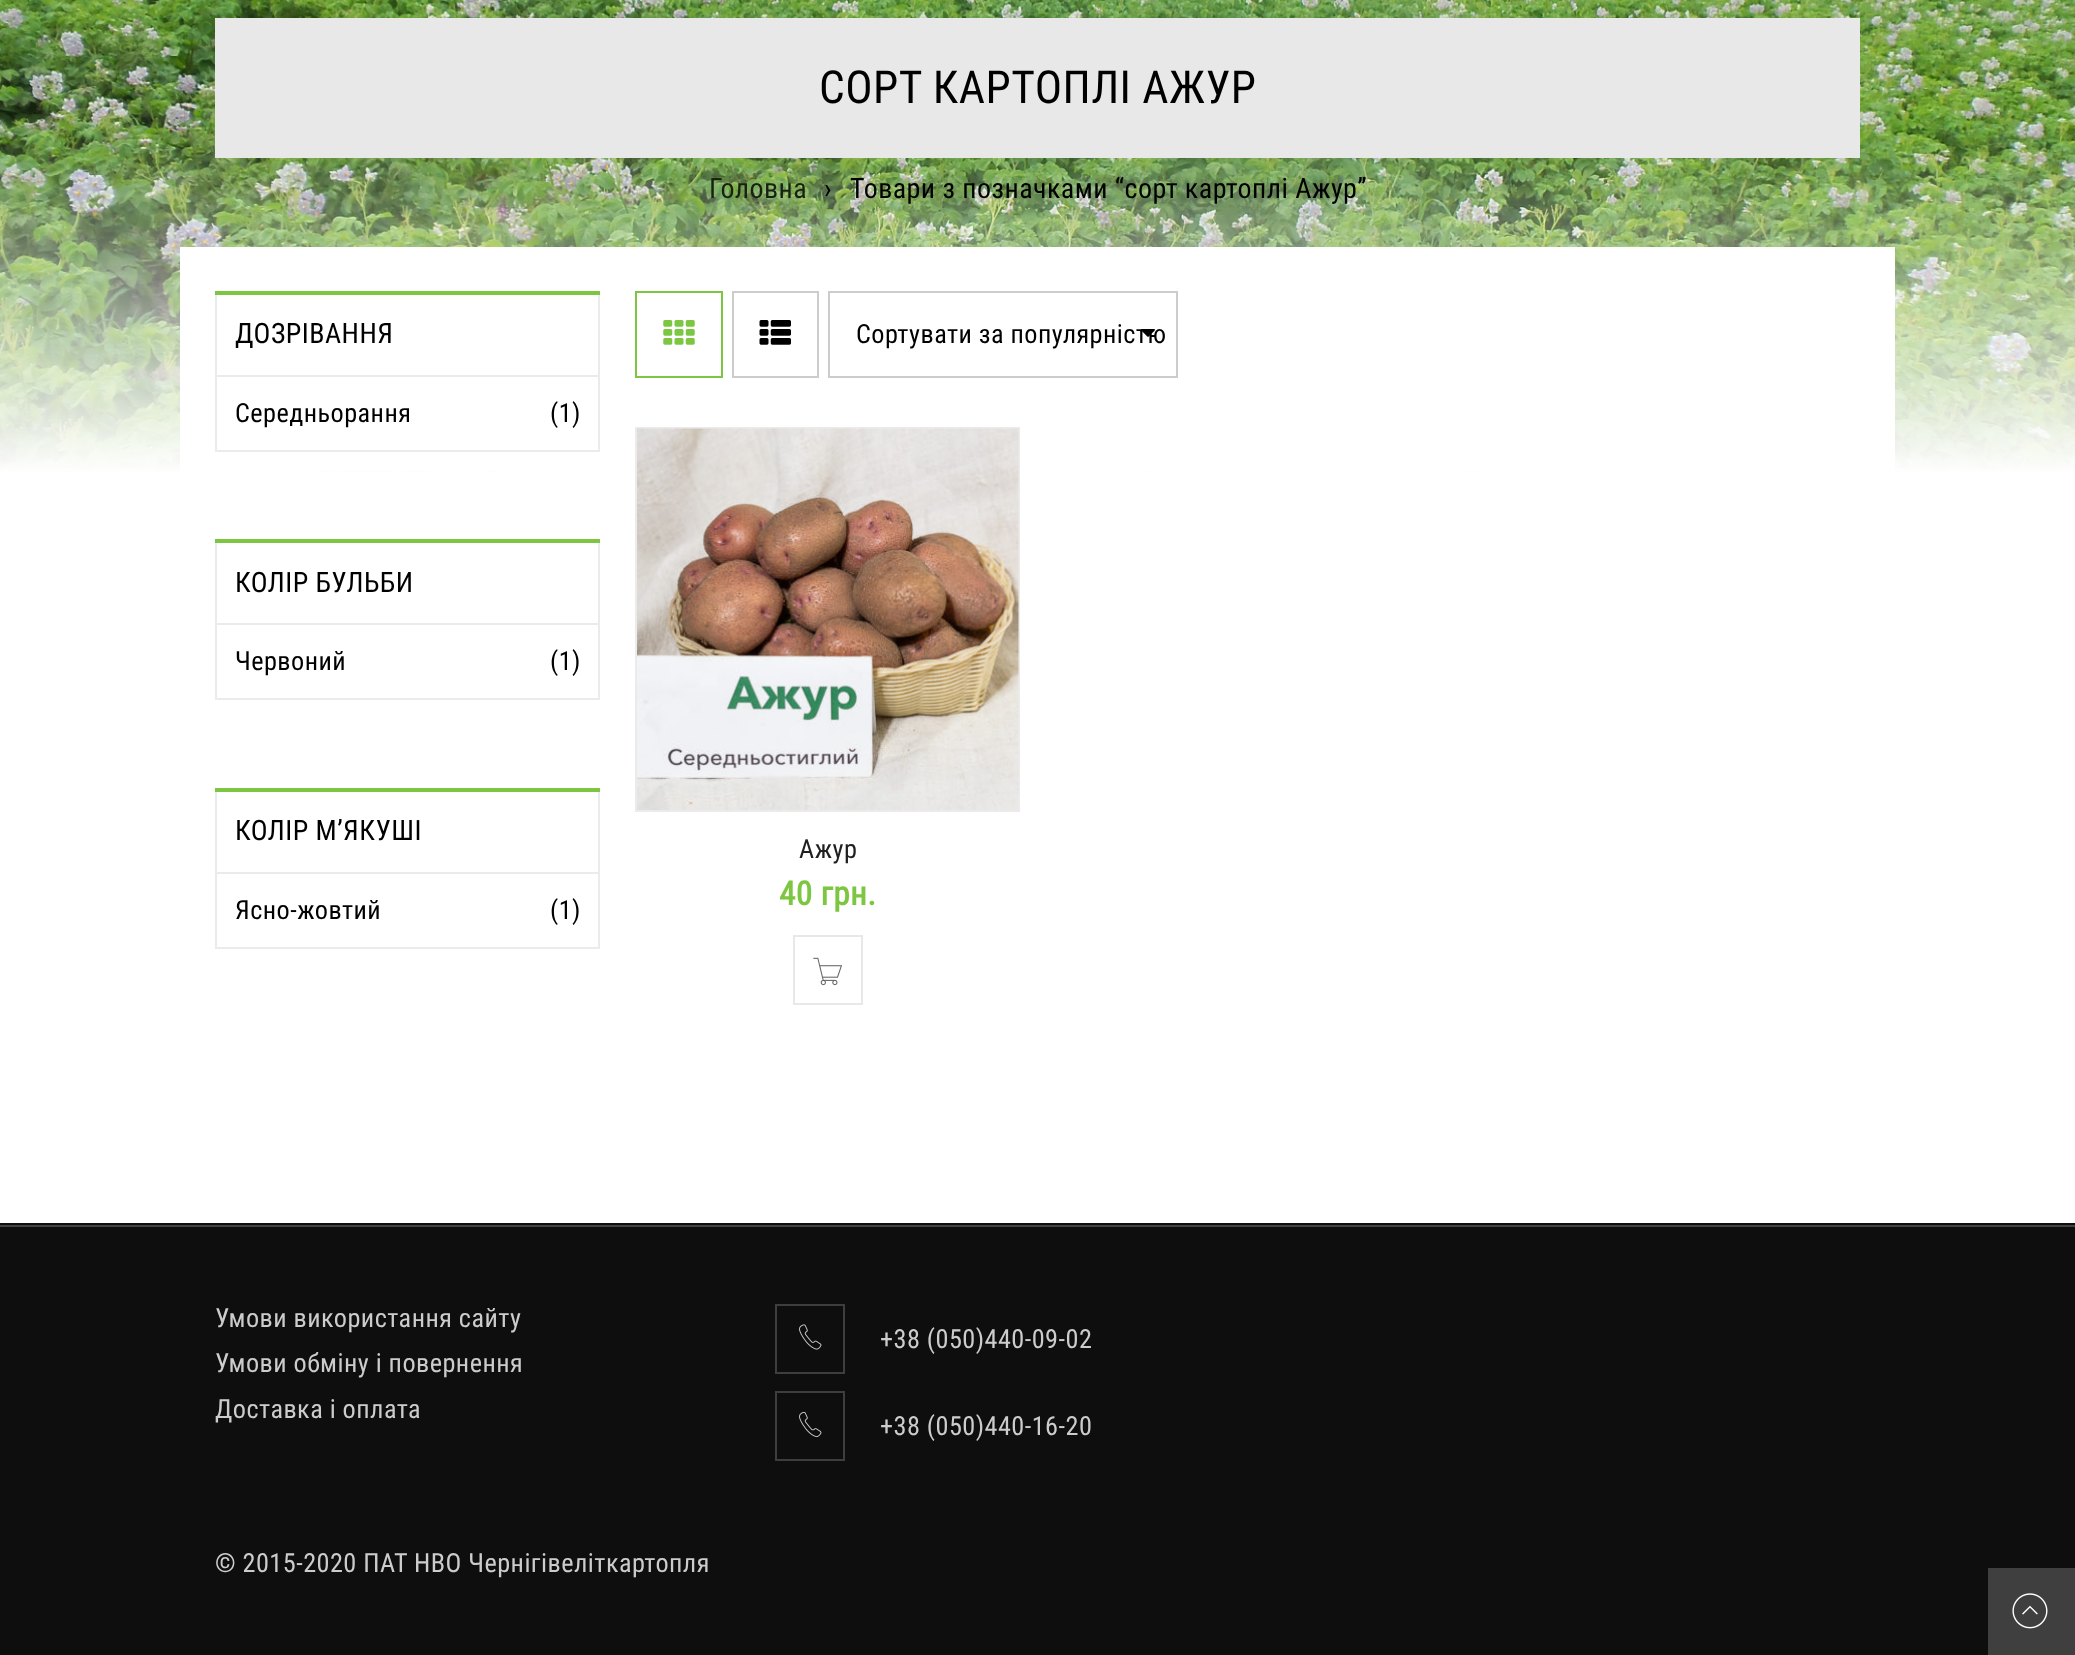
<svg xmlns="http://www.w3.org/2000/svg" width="2075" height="1655">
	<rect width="100%" height="100%" fill="#FFFFFF" />
	<image x="0" y="0" width="2075" height="474" href="assets/img1.png" />
	<rect x="215" y="18" width="1645" height="140" fill="#E8E8E8" />
	<text x="819" y="103" font-family="Roboto Condensed" font-size="45.5" letter-spacing="0.45" fill="#000000">СОРТ КАРТОПЛІ АЖУР</text>
	<text x="709" y="198" font-family="Roboto Condensed" font-size="28" letter-spacing="0.45" fill="#192113">Головна</text>
	<g font-family="Roboto Condensed" font-size="28" letter-spacing="0.45" fill="#000000">
		<text x="824" y="198">›</text>
		<text x="850" y="198">Товари з позначками “сорт картоплі Ажур”</text>
	</g>
	<rect x="180" y="247" width="1715" height="224" fill="#FFFFFF" />
	<rect x="216" y="292" width="383" height="159" fill="none" stroke="#EBEBEB" stroke-width="2" />
	<rect x="215" y="291" width="385" height="4" fill="#7DC641" />
	<text x="235" y="343" font-family="Roboto Condensed" font-size="28" letter-spacing="0.45" fill="#000000">ДОЗРІВАННЯ</text>
	<rect x="217" y="375" width="382" height="2" fill="#EBEBEB" />
	<g font-family="Roboto Condensed" font-size="26.25" letter-spacing="0.45" fill="#000000">
		<text x="235" y="422">Середньорання</text>
		<text x="550" y="422">(1)</text>
	</g>
	<rect x="216" y="540" width="383" height="159" fill="none" stroke="#EBEBEB" stroke-width="2" />
	<rect x="215" y="539" width="385" height="4" fill="#7DC641" />
	<text x="235" y="592" font-family="Roboto Condensed" font-size="28" letter-spacing="0.45" fill="#000000">КОЛІР БУЛЬБИ</text>
	<rect x="217" y="623" width="382" height="2" fill="#EBEBEB" />
	<g font-family="Roboto Condensed" font-size="26.25" letter-spacing="0.45" fill="#000000">
		<text x="235" y="670">Червоний</text>
		<text x="550" y="670">(1)</text>
	</g>
	<rect x="216" y="789" width="383" height="159" fill="none" stroke="#EBEBEB" stroke-width="2" />
	<rect x="215" y="788" width="385" height="4" fill="#7DC641" />
	<text x="235" y="840" font-family="Roboto Condensed" font-size="28" letter-spacing="0.45" fill="#000000">КОЛІР М’ЯКУШІ</text>
	<rect x="217" y="872" width="382" height="2" fill="#EBEBEB" />
	<g font-family="Roboto Condensed" font-size="26.25" letter-spacing="0.45" fill="#000000">
		<text x="235" y="919">Ясно-жовтий</text>
		<text x="550" y="919">(1)</text>
	</g>
	<rect x="636" y="292" width="86" height="85" fill="none" stroke="#7DC641" stroke-width="2" />
	<image x="663" y="320" width="32" height="25" href="assets/img2.png" />
	<rect x="733" y="292" width="85" height="85" fill="none" stroke="#CCCCCC" stroke-width="2" />
	<image x="759" y="320" width="32" height="25" href="assets/img3.png" />
	<rect x="829" y="292" width="348" height="85" fill="none" stroke="#CCCCCC" stroke-width="2" />
	<text x="856" y="343" font-family="Roboto Condensed" font-size="26.25" letter-spacing="0.45" fill="#000000">Сортувати за популярністю</text>
	<image x="1141" y="329" width="14" height="8" href="assets/img4.png" />
	<rect x="636" y="428" width="383" height="383" fill="none" stroke="#EBEBEB" stroke-width="2" />
	<image x="637" y="428" width="382" height="382" href="assets/img5.png" />
	<text x="799" y="858" font-family="Roboto Condensed" font-size="26.25" letter-spacing="0.5" fill="#202020">Ажур</text>
	<text x="779" y="905" font-family="Roboto Condensed" font-size="33" font-weight="700" letter-spacing="0.45" fill="#7DC641">40 грн.</text>
	<rect x="794" y="936" width="68" height="68" fill="none" stroke="#E8E8E8" stroke-width="2" />
	<image x="813" y="957" width="30" height="29" href="assets/img6.png" />
	<rect x="0" y="1223" width="2075" height="432" fill="#0E0E0E" />
	<rect x="0" y="1225" width="2075" height="2" fill="#424242" />
	<g font-family="Roboto Condensed" font-size="26.25" letter-spacing="0.45" fill="#CCCCCC">
		<text x="215" y="1327">Умови використання сайту</text>
		<text x="215" y="1372">Умови обміну і повернення</text>
		<text x="215" y="1418">Доставка і оплата</text>
	</g>
	<image x="799" y="1324" width="23" height="26" href="assets/img7.png" />
	<rect x="776" y="1305" width="68" height="68" fill="none" stroke="#3E3E3E" stroke-width="2" />
	<text x="880" y="1348" font-family="Roboto Condensed" font-size="26.25" letter-spacing="0.45" fill="#CCCCCC">+38 (050)440-09-02</text>
	<image x="799" y="1411" width="23" height="27" href="assets/img8.png" />
	<rect x="776" y="1392" width="68" height="68" fill="none" stroke="#3E3E3E" stroke-width="2" />
	<g font-family="Roboto Condensed" font-size="26.25" letter-spacing="0.45" fill="#CCCCCC">
		<text x="880" y="1435">+38 (050)440-16-20</text>
		<text x="215" y="1572">© 2015-2020 ПАТ НВО Чернігівеліткартопля</text>
	</g>
	<rect x="1988" y="1568" width="87" height="87" fill="#3F3F3F" />
	<image x="2012" y="1593" width="36" height="36" href="assets/img9.png" />
</svg>
